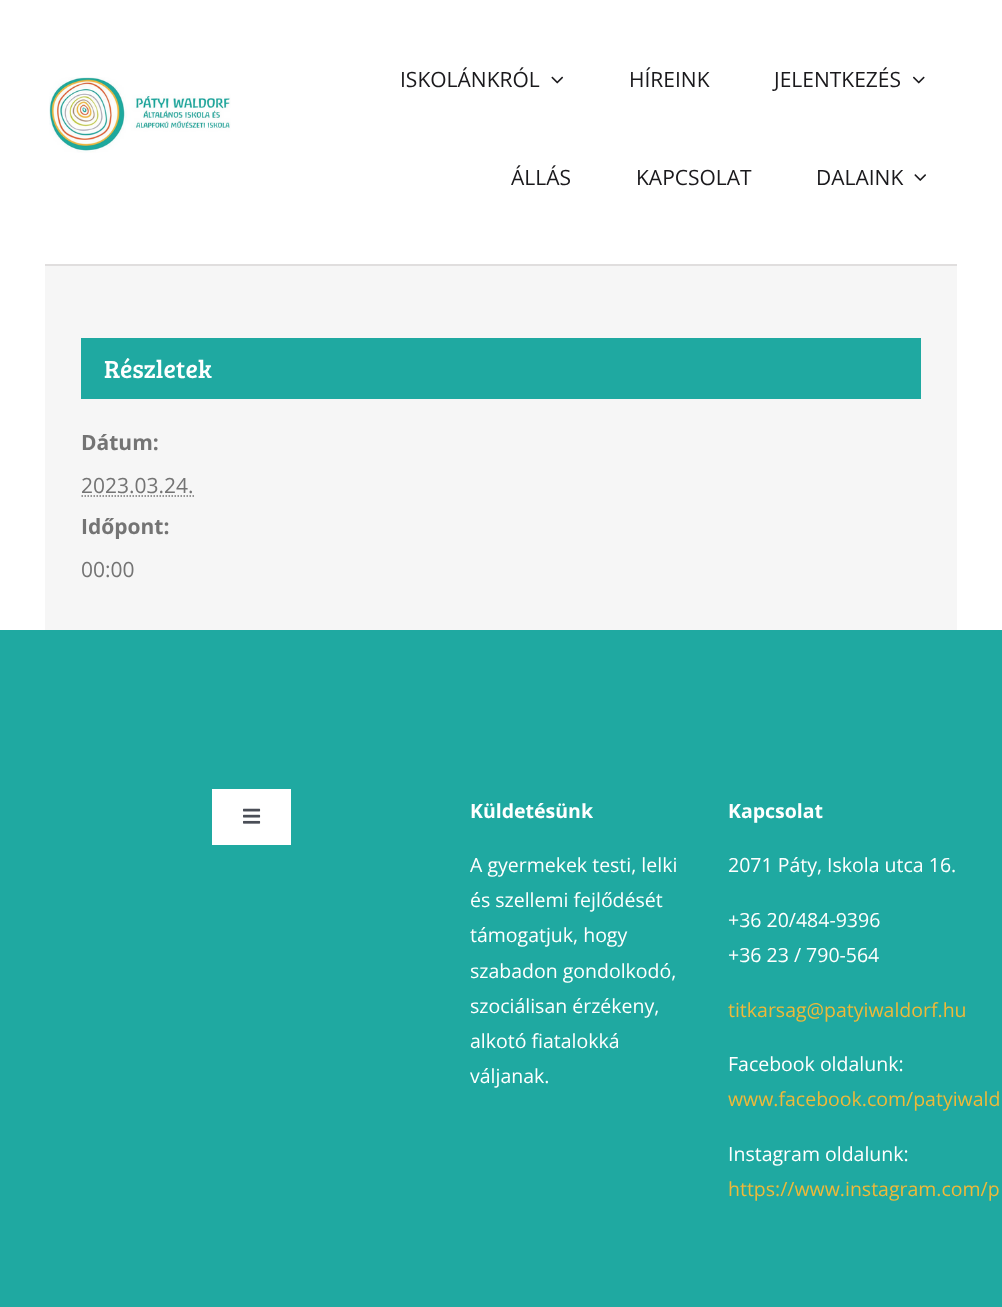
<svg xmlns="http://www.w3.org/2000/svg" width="1002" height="1307">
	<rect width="100%" height="100%" fill="#FFFFFF" />
	<image x="49" y="77" width="182" height="76" href="assets/img1.png" />
	<text x="400" y="87" font-family="Open Sans" font-size="21" fill="#1A191C">ISKOLÁNKRÓL</text>
	<image x="551" y="76" width="13" height="8" href="assets/img2.png" />
	<g font-family="Open Sans" font-size="21" fill="#1A191C">
		<text x="629" y="87">HÍREINK</text>
		<text x="774" y="87">JELENTKEZÉS</text>
	</g>
	<image x="913" y="76" width="12" height="8" href="assets/img3.png" />
	<g font-family="Open Sans" font-size="21" fill="#1A191C">
		<text x="511" y="185">ÁLLÁS</text>
		<text x="636" y="185">KAPCSOLAT</text>
		<text x="816" y="185">DALAINK</text>
	</g>
	<image x="914" y="174" width="12" height="7" href="assets/img4.png" />
	<rect x="45" y="264" width="912" height="2" fill="#E0DEDE" />
	<rect x="45" y="266" width="912" height="364" fill="#F6F6F6" />
	<rect x="81" y="338" width="840" height="61" fill="#1FA9A1" />
	<text x="104" y="378" font-family="Bree Serif" font-size="25.5" fill="#FFFFFF">Részletek</text>
	<text x="81" y="450" font-family="Open Sans" font-size="21" font-weight="700" fill="#747474">Dátum:</text>
	<text x="81" y="493" font-family="Open Sans" font-size="21" fill="#747474">2023.03.24.</text>
	<path d="M81.5 496H194" fill="none" stroke="#747474" stroke-width="1.5" stroke-dasharray="1.5 1.5" />
	<text x="81" y="534" font-family="Open Sans" font-size="21" font-weight="700" fill="#747474">Időpont:</text>
	<text x="81" y="577" font-family="Open Sans" font-size="21" fill="#747474">00:00</text>
	<rect x="0" y="630" width="1002" height="677" fill="#1FA9A1" />
	<rect x="212" y="789" width="79" height="56" fill="#FFFFFF" />
	<image x="243" y="808" width="18" height="16" href="assets/img5.png" />
	<text x="470" y="818" font-family="Open Sans" font-size="19.5" font-weight="700" fill="#FFFFFF">Küldetésünk</text>
	<g font-family="Open Sans" font-size="19.5" fill="#FFFFFF">
		<text x="470" y="872">A gyermekek testi, lelki</text>
		<text x="470" y="907">és szellemi fejlődését</text>
		<text x="470" y="942">támogatjuk, hogy</text>
		<text x="470" y="978">szabadon gondolkodó,</text>
		<text x="470" y="1013">szociálisan érzékeny,</text>
		<text x="470" y="1048">alkotó fiatalokká</text>
		<text x="470" y="1083">váljanak.</text>
	</g>
	<text x="728" y="818" font-family="Open Sans" font-size="19.5" font-weight="700" fill="#FFFFFF">Kapcsolat</text>
	<g font-family="Open Sans" font-size="19.5" fill="#FFFFFF">
		<text x="728" y="872">2071 Páty, Iskola utca 16.</text>
		<text x="728" y="927">+36 20/484-9396</text>
		<text x="728" y="962">+36 23 / 790-564</text>
	</g>
	<text x="728" y="1017" font-family="Open Sans" font-size="19.5" fill="#EFB939">titkarsag@patyiwaldorf.hu</text>
	<text x="728" y="1071" font-family="Open Sans" font-size="19.5" fill="#FFFFFF">Facebook oldalunk:</text>
	<text x="728" y="1106" font-family="Open Sans" font-size="19.5" fill="#EFB939">www.facebook.com/patyiwald</text>
	<text x="728" y="1161" font-family="Open Sans" font-size="19.5" fill="#FFFFFF">Instagram oldalunk:</text>
	<text x="728" y="1196" font-family="Open Sans" font-size="19.5" fill="#EFB939">https://www.instagram.com/p</text>
</svg>
